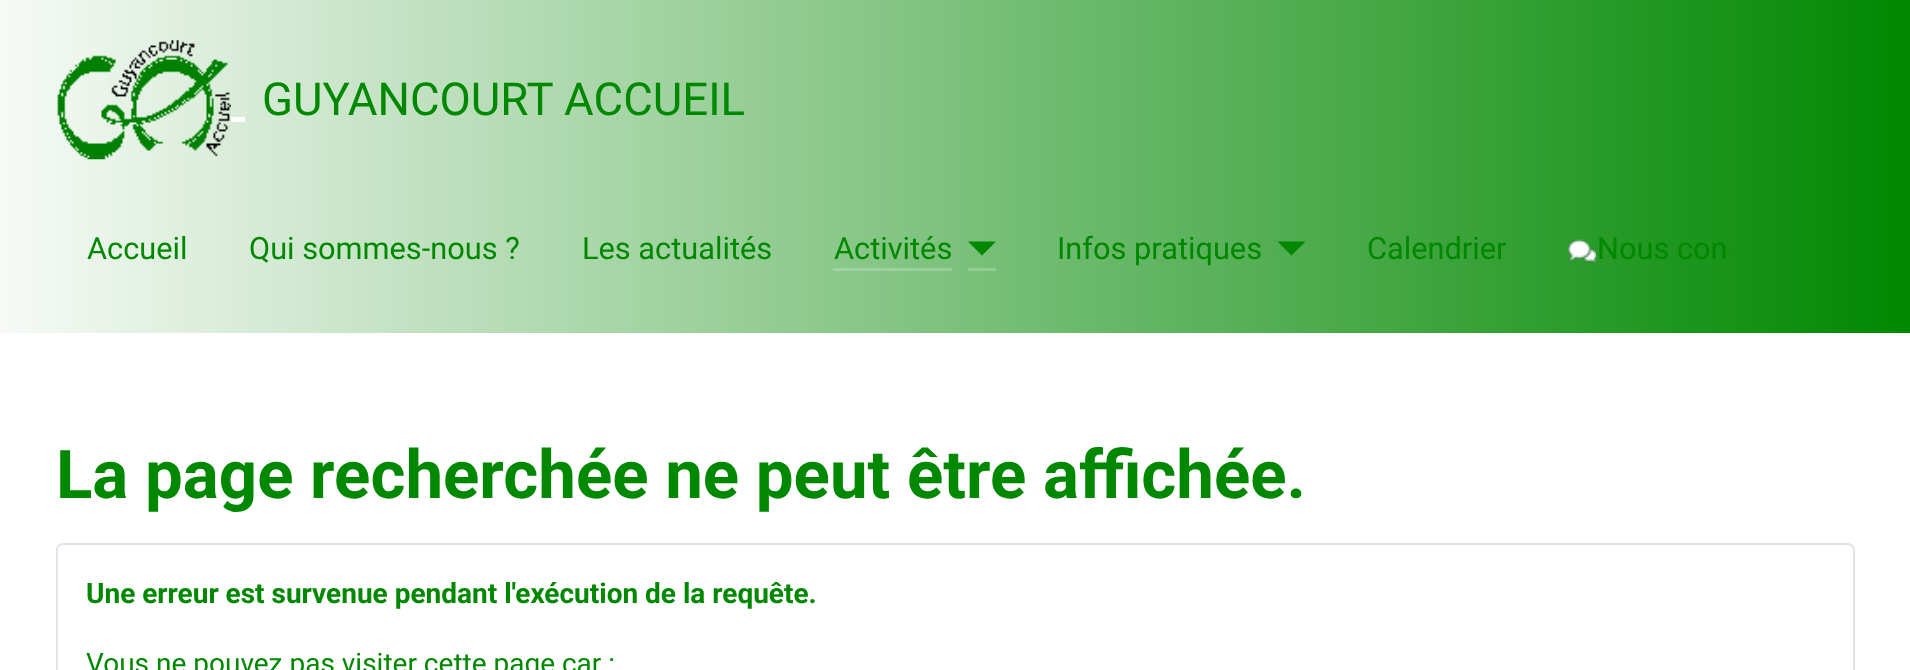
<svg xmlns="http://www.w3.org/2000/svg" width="1910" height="670">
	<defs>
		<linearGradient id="g1" gradientUnits="userSpaceOnUse" x1="0" y1="166" x2="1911" y2="166"><stop offset="0" stop-color="#F7FAF7" /><stop offset="1" stop-color="#008800" /></linearGradient>
		<linearGradient id="g2" gradientUnits="userSpaceOnUse" x1="0" y1="166" x2="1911" y2="166"><stop offset="0" stop-color="#F9FBF9" /><stop offset="1" stop-color="#33A033" /></linearGradient>
	</defs>
	<rect width="100%" height="100%" fill="#FFFFFF" />
	<rect x="0" y="0" width="1910" height="333" fill="url(#g1)" />
	<rect x="968" y="268" width="28" height="3" fill="url(#g2)" />
	<rect x="833" y="268" width="119" height="3" fill="url(#g2)" />
	<image x="57" y="40" width="174" height="120" href="assets/img1.png" />
	<text x="262" y="115" font-family="Roboto" font-size="45.5" fill="#008800">GUYANCOURT ACCUEIL</text>
	<rect x="231" y="117" width="14" height="5" fill="#FFFFFF" />
	<g font-family="Roboto" font-size="30.75" fill="#008800">
		<text x="87" y="259">Accueil</text>
		<text x="249" y="259">Qui sommes-nous ?</text>
		<text x="582" y="259">Les actualités</text>
		<text x="834" y="259">Activités</text>
	</g>
	<path d="M968 241.5H996L982 255.5Z" fill="#008800" />
	<text x="1057" y="259" font-family="Roboto" font-size="30.75" fill="#008800">Infos pratiques</text>
	<path d="M1277.5 241.5H1305.5L1291.5 255.5Z" fill="#008800" />
	<text x="1367" y="259" font-family="Roboto" font-size="30.75" fill="#008800">Calendrier</text>
	<image x="1568" y="239" width="28" height="25" href="assets/img2.png" />
	<text x="1597" y="259" font-family="Roboto" font-size="30.75" fill="#008800">Nous con</text>
	<text x="56" y="498" font-family="Roboto" font-size="67.2" font-weight="700" fill="#008800">La page recherchée ne peut être affichée.</text>
	<rect x="57" y="544" width="1797" height="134" rx="6" fill="none" stroke="#DFE3E7" stroke-width="2" />
	<text x="86" y="603" font-family="Roboto" font-size="28" font-weight="700" fill="#008800">Une erreur est survenue pendant l'exécution de la requête.</text>
	<text x="86" y="673" font-family="Roboto" font-size="28" fill="#008800">Vous ne pouvez pas visiter cette page car :</text>
</svg>
